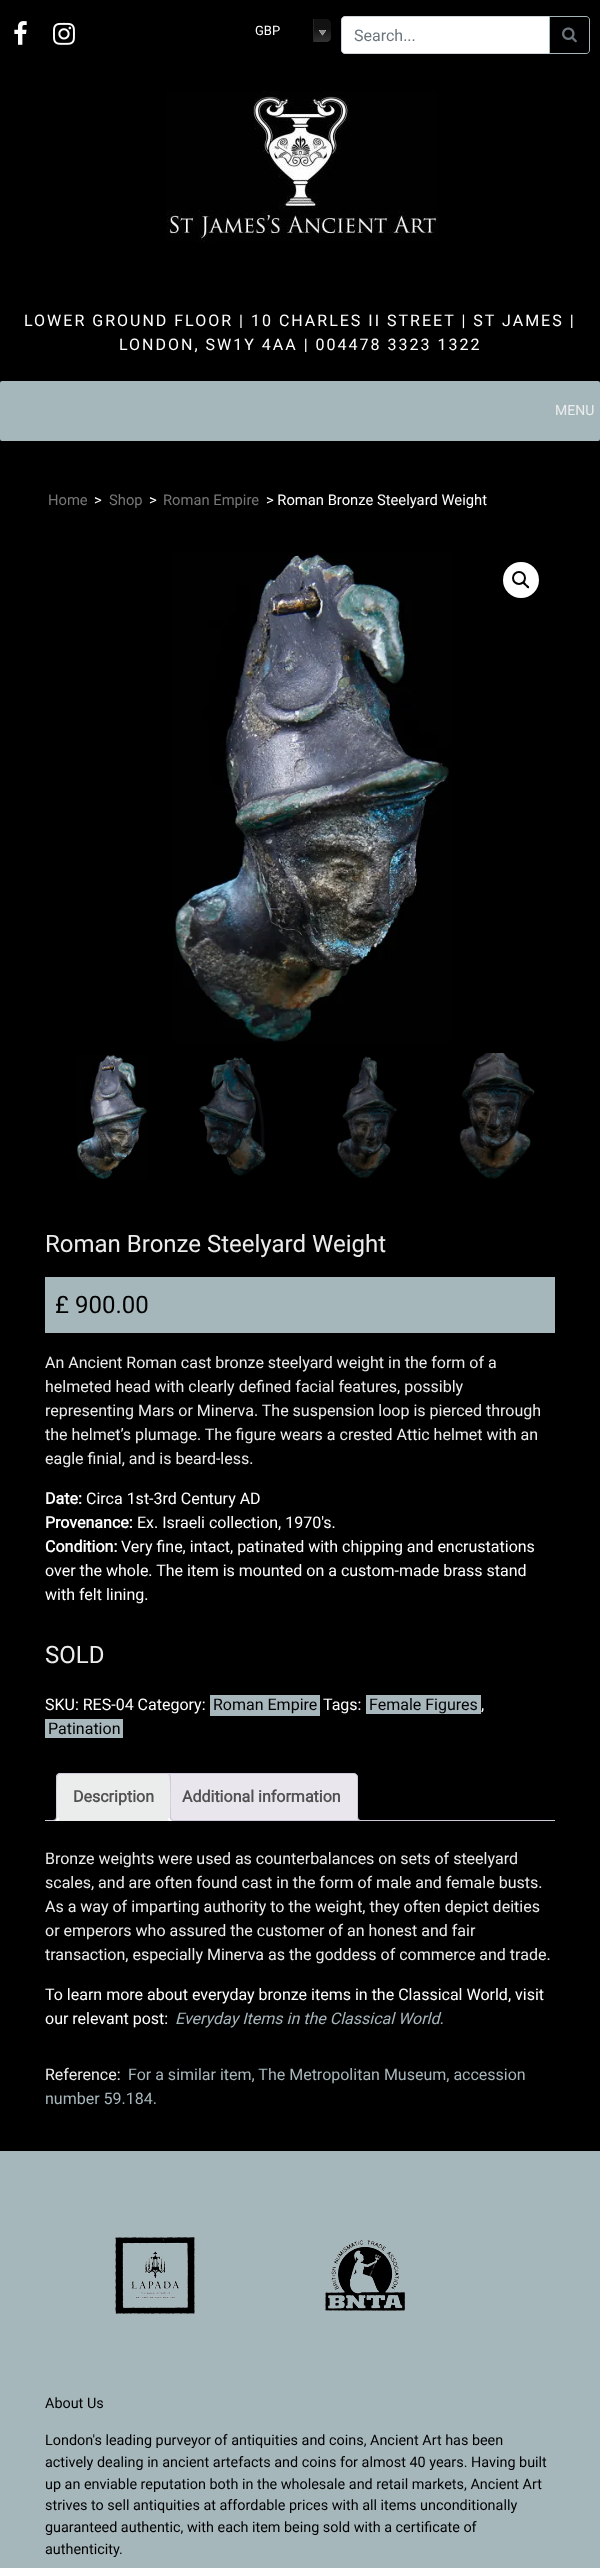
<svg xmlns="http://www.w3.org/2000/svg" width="600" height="2568">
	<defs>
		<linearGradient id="g1" gradientUnits="userSpaceOnUse" x1="314" y1="42" x2="314" y2="19"><stop offset="0" stop-color="#333333" /><stop offset="0.6" stop-color="#121212" /></linearGradient>
		<clipPath id="clip1"><rect x="45" y="1773" width="510" height="48" /></clipPath>
	</defs>
	<rect width="100%" height="100%" fill="#000000" />
	<image x="14" y="21" width="13" height="24" href="assets/img1.png" />
	<image x="53" y="22" width="22" height="23" href="assets/img2.png" />
	<text x="255" y="35" font-family="Roboto" font-size="13" fill="#FFFFFF">GBP</text>
	<path d="M313 19H326C329 19 331 21 331 24V37C331 40 329 42 326 42H313Z" fill="url(#g1)" />
	<rect x="313" y="19" width="1" height="23" fill="#252525" />
	<image x="319" y="30" width="7" height="6" href="assets/img3.png" />
	<path d="M345 16.5H549.5V53.5H345C343 53.5 341.5 52 341.5 50V20C341.5 18 343 16.5 345 16.5Z" fill="#FFFFFF" stroke="#CED4DA" />
	<text x="354" y="41" font-family="Roboto" font-size="16" fill="#6C757D">Search...</text>
	<path d="M549.5 16.5H586C588 16.5 589.5 18 589.5 20V50C589.5 52 588 53.5 586 53.5H549.5Z" fill="none" stroke="#A6B7BC" />
	<image x="562" y="27" width="15" height="16" href="assets/img4.png" />
	<image x="166" y="91" width="272" height="151" href="assets/img5.png" />
	<g font-family="Roboto" font-size="16" letter-spacing="2" fill="#FFFFFF">
		<text x="24" y="326">LOWER GROUND FLOOR | 10 CHARLES II STREET | ST JAMES |</text>
		<text x="119" y="350">LONDON, SW1Y 4AA | 004478 3323 1322</text>
	</g>
	<rect x="0" y="381" width="600" height="60" rx="2" fill="#A6B7BC" />
	<text x="555" y="415" font-family="Roboto" font-size="14" fill="#EBEDED">MENU</text>
	<text x="48" y="505" font-family="Roboto" font-size="14.75" fill="#777777">Home</text>
	<text x="94" y="505" font-family="Roboto" font-size="14.75" fill="#FFFFFF">&gt;</text>
	<text x="109" y="505" font-family="Roboto" font-size="14.75" fill="#777777">Shop</text>
	<text x="149" y="505" font-family="Roboto" font-size="14.75" fill="#FFFFFF">&gt;</text>
	<text x="163" y="505" font-family="Roboto" font-size="14.75" fill="#777777">Roman Empire</text>
	<text x="266" y="505" font-family="Roboto" font-size="14.75" fill="#FFFFFF">&gt; Roman Bronze Steelyard Weight</text>
	<image x="173" y="553" width="278" height="490" href="assets/img6.png" />
	<circle cx="521" cy="580" r="18" fill="#FFFFFF" />
	<circle cx="519" cy="578" r="6" fill="none" stroke="#000000" stroke-width="2" />
	<path d="M523 582C524.5 581 526 584 526.5 584.5C527.5 585 530 586.5 529 588C527.5 589 526 586.5 525.5 586C524.5 585 522 583.5 523 582Z" fill="#000000" />
	<image x="77" y="1054" width="70" height="126" href="assets/img7.png" />
	<image x="199" y="1057" width="67" height="119" href="assets/img8.png" />
	<image x="337" y="1056" width="60" height="122" href="assets/img9.png" />
	<image x="459" y="1053" width="76" height="126" href="assets/img10.png" />
	<text x="45" y="1252" font-family="Roboto" font-size="24" fill="#EBEDED">Roman Bronze Steelyard Weight</text>
	<rect x="45" y="1277" width="510" height="56" fill="#A6B7BC" />
	<text x="55" y="1313" font-family="Roboto" font-size="24" fill="#000000">£ 900.00</text>
	<g font-family="Roboto" font-size="16" fill="#EBEDED">
		<text x="45" y="1368">An Ancient Roman cast bronze steelyard weight in the form of a</text>
		<text x="45" y="1392">helmeted head with clearly defined facial features, possibly</text>
		<text x="45" y="1416">representing Mars or Minerva. The suspension loop is pierced through</text>
		<text x="45" y="1440">the helmet’s plumage. The figure wears a crested Attic helmet with an</text>
		<text x="45" y="1464">eagle finial, and is beard-less.</text>
	</g>
	<text x="45" y="1504" font-family="Roboto" font-size="16" font-weight="700" fill="#FFFFFF">Date:</text>
	<text x="86" y="1504" font-family="Roboto" font-size="16" fill="#FFFFFF">Circa 1st-3rd Century AD</text>
	<text x="45" y="1528" font-family="Roboto" font-size="16" font-weight="700" fill="#FFFFFF">Provenance:</text>
	<text x="137" y="1528" font-family="Roboto" font-size="16" fill="#FFFFFF">Ex. Israeli collection, 1970's.</text>
	<text x="45" y="1552" font-family="Roboto" font-size="16" font-weight="700" fill="#FFFFFF">Condition:</text>
	<g font-family="Roboto" font-size="16" fill="#FFFFFF">
		<text x="121" y="1552">Very fine, intact, patinated with chipping and encrustations</text>
		<text x="45" y="1576">over the whole. The item is mounted on a custom-made brass stand</text>
		<text x="45" y="1600">with felt lining.</text>
	</g>
	<text x="45" y="1663" font-family="Roboto" font-size="24" fill="#EBEDED">SOLD</text>
	<text x="45" y="1710" font-family="Roboto" font-size="16" fill="#FFFFFF">SKU: RES-04 Category:</text>
	<rect x="210" y="1695" width="110" height="21" fill="#A7B7BC" />
	<text x="213" y="1710" font-family="Roboto" font-size="16" fill="#000000">Roman Empire</text>
	<text x="323" y="1710" font-family="Roboto" font-size="16" fill="#FFFFFF">Tags:</text>
	<rect x="366" y="1695" width="115" height="19" fill="#A7B7BC" />
	<text x="369" y="1710" font-family="Roboto" font-size="16" fill="#000000">Female Figures</text>
	<text x="481" y="1710" font-family="Roboto" font-size="16" fill="#FFFFFF">,</text>
	<rect x="45" y="1719" width="78" height="19" fill="#A7B7BC" />
	<text x="48" y="1734" font-family="Roboto" font-size="16" fill="#000000">Patination</text>
	<path d="M169 1773.5H354C356 1773.5 357.5 1775 357.5 1777V1820.5H165.5V1777C165.5 1775 167 1773.5 169 1773.5Z" fill="#E9E6ED" stroke="#CFC8D8" />
	<g clip-path="url(#clip1)">
		<path d="M355 1818C355 1821.5 356.5 1823 360 1823V1821C358.5 1820.5 357.5 1819.5 357 1818Z" fill="#E9E6ED" />
	</g>
	<path d="M357 1816H362V1821C359.5 1821 357 1820 357 1817ZM358 1816H362V1820C360 1820 358 1819.5 358 1817Z" fill="#CFC8D8" fill-rule="evenodd" />
	<rect x="45" y="1820" width="510" height="1" fill="#CFC8D8" />
	<path d="M60 1773H167C169 1773 171 1775 171 1777V1821H56V1777C56 1775 58 1773 60 1773Z" fill="#EBEDED" />
	<path d="M60 1773L57 1774L58 1775L60 1774H167L169 1775L170 1774L167 1773Z" fill="#CFC8D8" />
	<path d="M171 1821V1777C171 1776 170 1775 170 1774L169 1775C171 1777 170 1815 170 1820Z" fill="#CFC8D8" />
	<path d="M171 1821L170 1820H57L56 1821Z" fill="#EBEDED" />
	<path d="M56 1821L57 1820C57 1815 56 1777 58 1775L57 1774L56 1777Z" fill="#CFC8D8" />
	<text x="73" y="1802" font-family="Roboto" font-size="16" font-weight="700" fill="#515151">Description</text>
	<g clip-path="url(#clip1)">
		<path d="M54 1821V1823C57.5 1823 59 1821.5 59 1818H57C56.5 1819.5 55.5 1820.5 54 1821Z" fill="#FFFFFF" />
	</g>
	<path d="M52 1816H57C57 1819.5 55.5 1821 52 1821ZM52 1816H56C56 1819 55 1820 52 1820Z" fill="#CFC8D8" fill-rule="evenodd" />
	<g clip-path="url(#clip1)">
		<path d="M168 1818C168 1821.5 169.5 1823 173 1823V1821C171.5 1820.5 170.5 1819.5 170 1818Z" fill="#FFFFFF" />
	</g>
	<path d="M170 1816H175V1821C172.5 1821 170 1820 170 1817ZM171 1816H175V1820C173 1820 171 1819.5 171 1817Z" fill="#CFC8D8" fill-rule="evenodd" />
	<text x="182" y="1802" font-family="Roboto" font-size="16" font-weight="700" fill="#515151">Additional information</text>
	<g font-family="Roboto" font-size="16" fill="#EBEDED">
		<text x="45" y="1864">Bronze weights were used as counterbalances on sets of steelyard</text>
		<text x="45" y="1888">scales, and are often found cast in the form of male and female busts.</text>
		<text x="45" y="1912">As a way of imparting authority to the weight, they often depict deities</text>
		<text x="45" y="1936">or emperors who assured the customer of an honest and fair</text>
		<text x="45" y="1960">transaction, especially Minerva as the goddess of commerce and trade.</text>
	</g>
	<g font-family="Roboto" font-size="16" fill="#FFFFFF">
		<text x="45" y="2000">To learn more about everyday bronze items in the Classical World, visit</text>
		<text x="45" y="2024">our relevant post:</text>
	</g>
	<text x="175" y="2024" font-family="Roboto" font-size="16" font-style="italic" fill="#A7B7BC">Everyday Items in the Classical World.</text>
	<text x="45" y="2080" font-family="Roboto" font-size="16" fill="#EBEDED">Reference:</text>
	<g font-family="Roboto" font-size="16" fill="#A7B7BC">
		<text x="128" y="2080">For a similar item, The Metropolitan Museum, accession</text>
		<text x="45" y="2104">number 59.184.</text>
	</g>
	<rect x="0" y="2151" width="600" height="417" fill="#A6B7BC" />
	<image x="115" y="2237" width="80" height="77" href="assets/img11.png" />
	<image x="325" y="2240" width="80" height="71" href="assets/img12.png" />
	<g font-family="Roboto" font-size="14.4" fill="#000000">
		<text x="45" y="2408">About Us</text>
		<text x="45" y="2445">London's leading purveyor of antiquities and coins, Ancient Art has been</text>
		<text x="45" y="2467">actively dealing in ancient artefacts and coins for almost 40 years. Having built</text>
		<text x="45" y="2489">up an enviable reputation both in the wholesale and retail markets, Ancient Art</text>
		<text x="45" y="2510">strives to sell antiquities at affordable prices with all items unconditionally</text>
		<text x="45" y="2532">guaranteed authentic, with each item being sold with a certificate of</text>
		<text x="45" y="2554">authenticity.</text>
	</g>
</svg>
